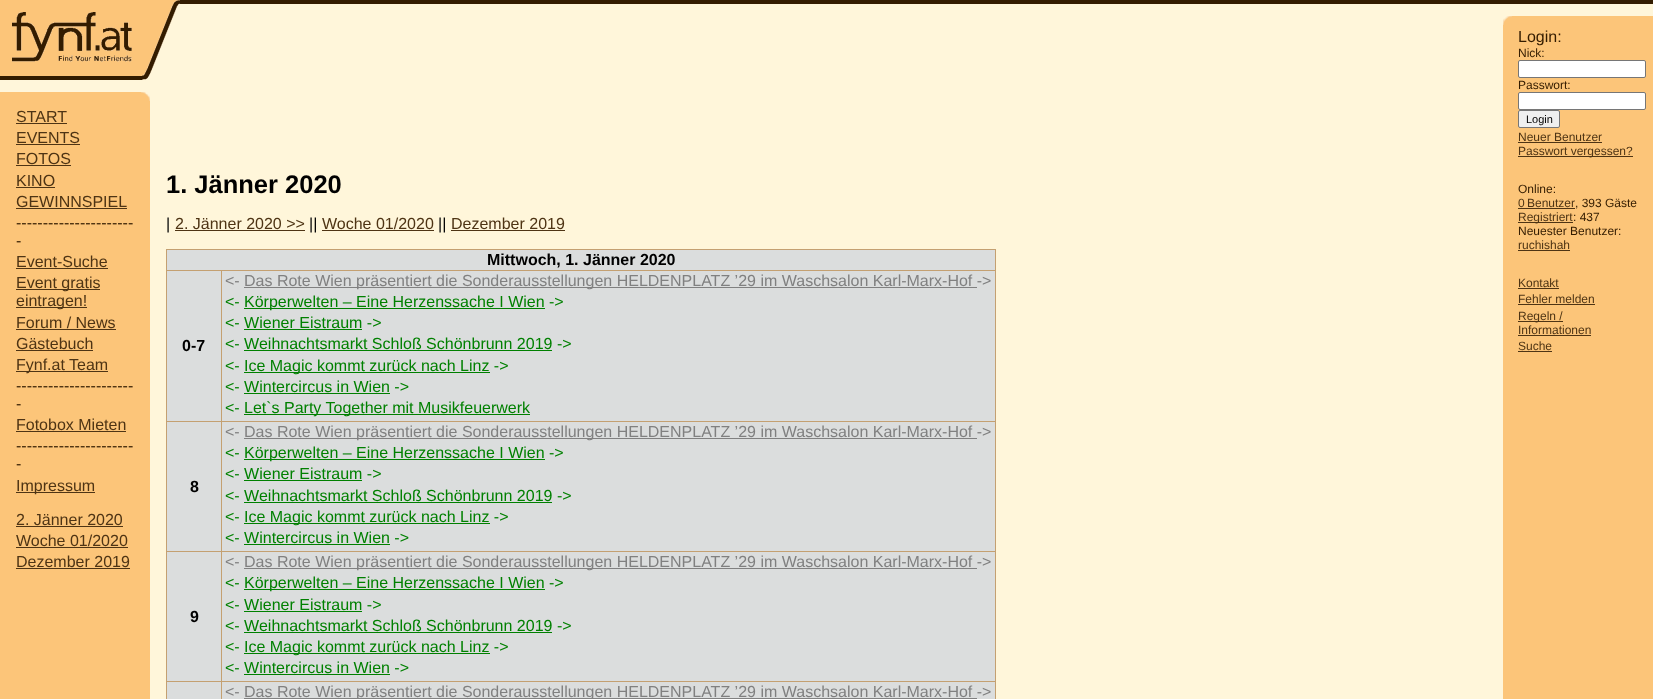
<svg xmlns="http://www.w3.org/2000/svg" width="1653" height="699">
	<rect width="100%" height="100%" fill="#FFF6DA" />
	<rect x="180" y="0" width="1473" height="4" fill="#331C00" />
	<image x="142" y="0" width="38" height="80" href="assets/img1.png" />
	<rect x="0" y="0" width="142" height="76" fill="#FCC579" />
	<rect x="0" y="76" width="142" height="4" fill="#331C00" />
	<image x="12" y="12" width="120" height="50" href="assets/img2.png" />
	<rect x="0" y="92" width="150" height="607" fill="#FCC579" />
	<image x="141" y="92" width="9" height="9" href="assets/img3.png" />
	<text x="16" y="122" font-family="Liberation Sans" font-size="16" fill="#4E3414">START</text>
	<rect x="16" y="123" width="51" height="1" fill="#4E3414" />
	<text x="16" y="143" font-family="Liberation Sans" font-size="16" fill="#4E3414">EVENTS</text>
	<rect x="16" y="144" width="64" height="1" fill="#4E3414" />
	<text x="16" y="164" font-family="Liberation Sans" font-size="16" fill="#4E3414">FOTOS</text>
	<rect x="16" y="165" width="55" height="1" fill="#4E3414" />
	<text x="16" y="186" font-family="Liberation Sans" font-size="16" fill="#4E3414">KINO</text>
	<rect x="16" y="187" width="39" height="1" fill="#4E3414" />
	<text x="16" y="207" font-family="Liberation Sans" font-size="16" fill="#4E3414">GEWINNSPIEL</text>
	<rect x="16" y="208" width="111" height="1" fill="#4E3414" />
	<g font-family="Liberation Sans" font-size="16" fill="#331C00">
		<text x="16" y="228">----------------------</text>
		<text x="16" y="246">-</text>
	</g>
	<text x="16" y="267" font-family="Liberation Sans" font-size="16" fill="#4E3414">Event-Suche</text>
	<rect x="16" y="268" width="92" height="1" fill="#4E3414" />
	<rect x="16" y="289" width="84" height="1" fill="#4E3414" />
	<text x="16" y="288" font-family="Liberation Sans" font-size="16" fill="#4E3414">Event gratis</text>
	<rect x="16" y="307" width="71" height="1" fill="#4E3414" />
	<g font-family="Liberation Sans" font-size="16" fill="#4E3414">
		<text x="16" y="306">eintragen!</text>
		<text x="16" y="328">Forum / News</text>
	</g>
	<rect x="16" y="329" width="100" height="1" fill="#4E3414" />
	<text x="16" y="349" font-family="Liberation Sans" font-size="16" fill="#4E3414">Gästebuch</text>
	<rect x="16" y="350" width="77" height="1" fill="#4E3414" />
	<rect x="16" y="371" width="92" height="1" fill="#4E3414" />
	<text x="16" y="370" font-family="Liberation Sans" font-size="16" fill="#4E3414">Fynf.at Team</text>
	<g font-family="Liberation Sans" font-size="16" fill="#331C00">
		<text x="16" y="391">----------------------</text>
		<text x="16" y="409">-</text>
	</g>
	<text x="16" y="430" font-family="Liberation Sans" font-size="16" fill="#4E3414">Fotobox Mieten</text>
	<rect x="16" y="431" width="110" height="1" fill="#4E3414" />
	<g font-family="Liberation Sans" font-size="16" fill="#331C00">
		<text x="16" y="451">----------------------</text>
		<text x="16" y="469">-</text>
	</g>
	<rect x="16" y="492" width="79" height="1" fill="#4E3414" />
	<g font-family="Liberation Sans" font-size="16" fill="#4E3414">
		<text x="16" y="491">Impressum</text>
		<text x="16" y="525">2. Jänner 2020</text>
	</g>
	<rect x="16" y="526" width="107" height="1" fill="#4E3414" />
	<text x="16" y="546" font-family="Liberation Sans" font-size="16" fill="#4E3414">Woche 01/2020</text>
	<rect x="16" y="547" width="112" height="1" fill="#4E3414" />
	<text x="16" y="567" font-family="Liberation Sans" font-size="16" fill="#4E3414">Dezember 2019</text>
	<rect x="16" y="568" width="114" height="1" fill="#4E3414" />
	<text x="166" y="193" font-family="Liberation Sans" font-size="25.5" font-weight="700" fill="#000000">1. Jänner 2020</text>
	<text x="166" y="229" font-family="Liberation Sans" font-size="16" fill="#000000">|</text>
	<text x="175" y="229" font-family="Liberation Sans" font-size="16" fill="#4E3414">2. Jänner 2020 &gt;&gt;</text>
	<rect x="175" y="230" width="130" height="1" fill="#4E3414" />
	<text x="309" y="229" font-family="Liberation Sans" font-size="16" fill="#000000">||</text>
	<text x="322" y="229" font-family="Liberation Sans" font-size="16" fill="#4E3414">Woche 01/2020</text>
	<rect x="322" y="230" width="112" height="1" fill="#4E3414" />
	<text x="438" y="229" font-family="Liberation Sans" font-size="16" fill="#000000">||</text>
	<text x="451" y="229" font-family="Liberation Sans" font-size="16" fill="#4E3414">Dezember 2019</text>
	<rect x="451" y="230" width="114" height="1" fill="#4E3414" />
	<rect x="166" y="249" width="830" height="1" fill="#C4A071" />
	<rect x="166" y="249" width="1" height="450" fill="#C4A071" />
	<rect x="167" y="250" width="828" height="20" fill="#DBDDDD" />
	<rect x="221" y="681" width="1" height="18" fill="#C4A071" />
	<rect x="995" y="249" width="1" height="450" fill="#C4A071" />
	<rect x="221" y="681" width="775" height="1" fill="#C4A071" />
	<rect x="221" y="551" width="1" height="131" fill="#C4A071" />
	<rect x="221" y="551" width="775" height="1" fill="#C4A071" />
	<rect x="221" y="421" width="1" height="131" fill="#C4A071" />
	<rect x="221" y="421" width="775" height="1" fill="#C4A071" />
	<rect x="221" y="270" width="1" height="152" fill="#C4A071" />
	<rect x="166" y="270" width="830" height="1" fill="#C4A071" />
	<text x="487" y="265" font-family="Liberation Sans" font-size="16" font-weight="700" fill="#000000">Mittwoch, 1. Jänner 2020</text>
	<rect x="167" y="271" width="54" height="150" fill="#DBDDDD" />
	<rect x="166" y="421" width="56" height="1" fill="#C4A071" />
	<text x="182" y="351" font-family="Liberation Sans" font-size="16" font-weight="700" fill="#000000">0-7</text>
	<rect x="222" y="271" width="773" height="150" fill="#DBDDDD" />
	<text x="225" y="286" font-family="Liberation Sans" font-size="16" fill="#808080">&lt;-</text>
	<rect x="244" y="287" width="733" height="1" fill="#808080" />
	<text x="244" y="286" font-family="Liberation Sans" font-size="16" fill="#808080">Das Rote Wien präsentiert die Sonderausstellungen HELDENPLATZ ’29 im Waschsalon Karl-Marx-Hof -&gt;</text>
	<text x="225" y="307" font-family="Liberation Sans" font-size="16" fill="#008000">&lt;-</text>
	<rect x="244" y="308" width="301" height="1" fill="#008000" />
	<g font-family="Liberation Sans" font-size="16" fill="#008000">
		<text x="244" y="307">Körperwelten – Eine Herzenssache I Wien -&gt;</text>
		<text x="225" y="328">&lt;- Wiener Eistraum -&gt;</text>
	</g>
	<rect x="244" y="329" width="118" height="1" fill="#008000" />
	<text x="225" y="349" font-family="Liberation Sans" font-size="16" fill="#008000">&lt;- Weihnachtsmarkt Schloß Schönbrunn 2019 -&gt;</text>
	<rect x="244" y="350" width="308" height="1" fill="#008000" />
	<text x="225" y="371" font-family="Liberation Sans" font-size="16" fill="#008000">&lt;-</text>
	<rect x="244" y="372" width="246" height="1" fill="#008000" />
	<g font-family="Liberation Sans" font-size="16" fill="#008000">
		<text x="244" y="371">Ice Magic kommt zurück nach Linz -&gt;</text>
		<text x="225" y="392">&lt;- Wintercircus in Wien -&gt;</text>
	</g>
	<rect x="244" y="393" width="146" height="1" fill="#008000" />
	<text x="225" y="413" font-family="Liberation Sans" font-size="16" fill="#008000">&lt;-</text>
	<rect x="244" y="414" width="286" height="1" fill="#008000" />
	<text x="244" y="413" font-family="Liberation Sans" font-size="16" fill="#008000">Let`s Party Together mit Musikfeuerwerk</text>
	<rect x="167" y="422" width="54" height="129" fill="#DBDDDD" />
	<rect x="166" y="551" width="56" height="1" fill="#C4A071" />
	<text x="190" y="492" font-family="Liberation Sans" font-size="16" font-weight="700" fill="#000000">8</text>
	<rect x="222" y="422" width="773" height="129" fill="#DBDDDD" />
	<text x="225" y="437" font-family="Liberation Sans" font-size="16" fill="#808080">&lt;-</text>
	<rect x="244" y="438" width="733" height="1" fill="#808080" />
	<text x="244" y="437" font-family="Liberation Sans" font-size="16" fill="#808080">Das Rote Wien präsentiert die Sonderausstellungen HELDENPLATZ ’29 im Waschsalon Karl-Marx-Hof -&gt;</text>
	<text x="225" y="458" font-family="Liberation Sans" font-size="16" fill="#008000">&lt;-</text>
	<rect x="244" y="459" width="301" height="1" fill="#008000" />
	<g font-family="Liberation Sans" font-size="16" fill="#008000">
		<text x="244" y="458">Körperwelten – Eine Herzenssache I Wien -&gt;</text>
		<text x="225" y="479">&lt;- Wiener Eistraum -&gt;</text>
	</g>
	<rect x="244" y="480" width="118" height="1" fill="#008000" />
	<text x="225" y="501" font-family="Liberation Sans" font-size="16" fill="#008000">&lt;- Weihnachtsmarkt Schloß Schönbrunn 2019 -&gt;</text>
	<rect x="244" y="502" width="308" height="1" fill="#008000" />
	<text x="225" y="522" font-family="Liberation Sans" font-size="16" fill="#008000">&lt;-</text>
	<rect x="244" y="523" width="246" height="1" fill="#008000" />
	<g font-family="Liberation Sans" font-size="16" fill="#008000">
		<text x="244" y="522">Ice Magic kommt zurück nach Linz -&gt;</text>
		<text x="225" y="543">&lt;- Wintercircus in Wien -&gt;</text>
	</g>
	<rect x="244" y="544" width="146" height="1" fill="#008000" />
	<rect x="167" y="552" width="54" height="129" fill="#DBDDDD" />
	<rect x="166" y="681" width="56" height="1" fill="#C4A071" />
	<text x="190" y="622" font-family="Liberation Sans" font-size="16" font-weight="700" fill="#000000">9</text>
	<rect x="222" y="552" width="773" height="129" fill="#DBDDDD" />
	<text x="225" y="567" font-family="Liberation Sans" font-size="16" fill="#808080">&lt;-</text>
	<rect x="244" y="568" width="733" height="1" fill="#808080" />
	<text x="244" y="567" font-family="Liberation Sans" font-size="16" fill="#808080">Das Rote Wien präsentiert die Sonderausstellungen HELDENPLATZ ’29 im Waschsalon Karl-Marx-Hof -&gt;</text>
	<text x="225" y="588" font-family="Liberation Sans" font-size="16" fill="#008000">&lt;-</text>
	<rect x="244" y="589" width="301" height="1" fill="#008000" />
	<g font-family="Liberation Sans" font-size="16" fill="#008000">
		<text x="244" y="588">Körperwelten – Eine Herzenssache I Wien -&gt;</text>
		<text x="225" y="610">&lt;- Wiener Eistraum -&gt;</text>
	</g>
	<rect x="244" y="611" width="118" height="1" fill="#008000" />
	<text x="225" y="631" font-family="Liberation Sans" font-size="16" fill="#008000">&lt;- Weihnachtsmarkt Schloß Schönbrunn 2019 -&gt;</text>
	<rect x="244" y="632" width="308" height="1" fill="#008000" />
	<text x="225" y="652" font-family="Liberation Sans" font-size="16" fill="#008000">&lt;-</text>
	<rect x="244" y="653" width="246" height="1" fill="#008000" />
	<g font-family="Liberation Sans" font-size="16" fill="#008000">
		<text x="244" y="652">Ice Magic kommt zurück nach Linz -&gt;</text>
		<text x="225" y="673">&lt;- Wintercircus in Wien -&gt;</text>
	</g>
	<rect x="244" y="674" width="146" height="1" fill="#008000" />
	<rect x="167" y="682" width="54" height="17" fill="#DBDDDD" />
	<rect x="222" y="682" width="773" height="17" fill="#DBDDDD" />
	<text x="225" y="697" font-family="Liberation Sans" font-size="16" fill="#808080">&lt;-</text>
	<rect x="244" y="698" width="733" height="1" fill="#808080" />
	<text x="244" y="697" font-family="Liberation Sans" font-size="16" fill="#808080">Das Rote Wien präsentiert die Sonderausstellungen HELDENPLATZ ’29 im Waschsalon Karl-Marx-Hof -&gt;</text>
	<rect x="1503" y="16" width="150" height="683" fill="#FCC579" />
	<image x="1503" y="16" width="9" height="9" href="assets/img4.png" />
	<text x="1518" y="42" font-family="Liberation Sans" font-size="16" fill="#331C00">Login:</text>
	<text x="1518" y="57" font-family="Liberation Sans" font-size="12" fill="#331C00">Nick:</text>
	<rect x="1518.5" y="60.5" width="127" height="17" rx="1.5" fill="#FFFFFF" stroke="#767676" />
	<text x="1518" y="89" font-family="Liberation Sans" font-size="12" fill="#331C00">Passwort:</text>
	<rect x="1518.5" y="92.5" width="127" height="17" rx="1.5" fill="#FFFFFF" stroke="#767676" />
	<rect x="1518.5" y="110.5" width="41" height="17" rx="1.5" fill="#EFEFEF" stroke="#767676" />
	<text x="1526" y="123" font-family="Liberation Sans" font-size="11" fill="#000000">Login</text>
	<text x="1518" y="141" font-family="Liberation Sans" font-size="12" fill="#4E3414">Neuer Benutzer</text>
	<rect x="1518" y="142" width="84" height="1" fill="#4E3414" />
	<rect x="1518" y="156" width="115" height="1" fill="#4E3414" />
	<text x="1518" y="155" font-family="Liberation Sans" font-size="12" fill="#4E3414">Passwort vergessen?</text>
	<text x="1518" y="193" font-family="Liberation Sans" font-size="12" fill="#331C00">Online:</text>
	<text x="1518" y="207" word-spacing="-1" font-family="Liberation Sans" font-size="12" fill="#4E3414">0 Benutzer</text>
	<rect x="1518" y="208" width="57" height="1" fill="#4E3414" />
	<text x="1575" y="207" font-family="Liberation Sans" font-size="12" fill="#331C00">, 393 Gäste</text>
	<rect x="1518" y="222" width="55" height="1" fill="#4E3414" />
	<text x="1518" y="221" font-family="Liberation Sans" font-size="12" fill="#4E3414">Registriert</text>
	<g font-family="Liberation Sans" font-size="12" fill="#331C00">
		<text x="1573" y="221">: 437</text>
		<text x="1518" y="235">Neuester Benutzer:</text>
	</g>
	<text x="1518" y="249" font-family="Liberation Sans" font-size="12" fill="#4E3414">ruchishah</text>
	<rect x="1518" y="250" width="52" height="1" fill="#4E3414" />
	<text x="1518" y="287" font-family="Liberation Sans" font-size="12" fill="#4E3414">Kontakt</text>
	<rect x="1518" y="288" width="41" height="1" fill="#4E3414" />
	<text x="1518" y="303" font-family="Liberation Sans" font-size="12" fill="#4E3414">Fehler melden</text>
	<rect x="1518" y="304" width="77" height="1" fill="#4E3414" />
	<rect x="1518" y="321" width="45" height="1" fill="#4E3414" />
	<g font-family="Liberation Sans" font-size="12" fill="#4E3414">
		<text x="1518" y="320">Regeln /</text>
		<text x="1518" y="334">Informationen</text>
	</g>
	<rect x="1518" y="335" width="73" height="1" fill="#4E3414" />
	<text x="1518" y="350" font-family="Liberation Sans" font-size="12" fill="#4E3414">Suche</text>
	<rect x="1518" y="351" width="34" height="1" fill="#4E3414" />
</svg>
